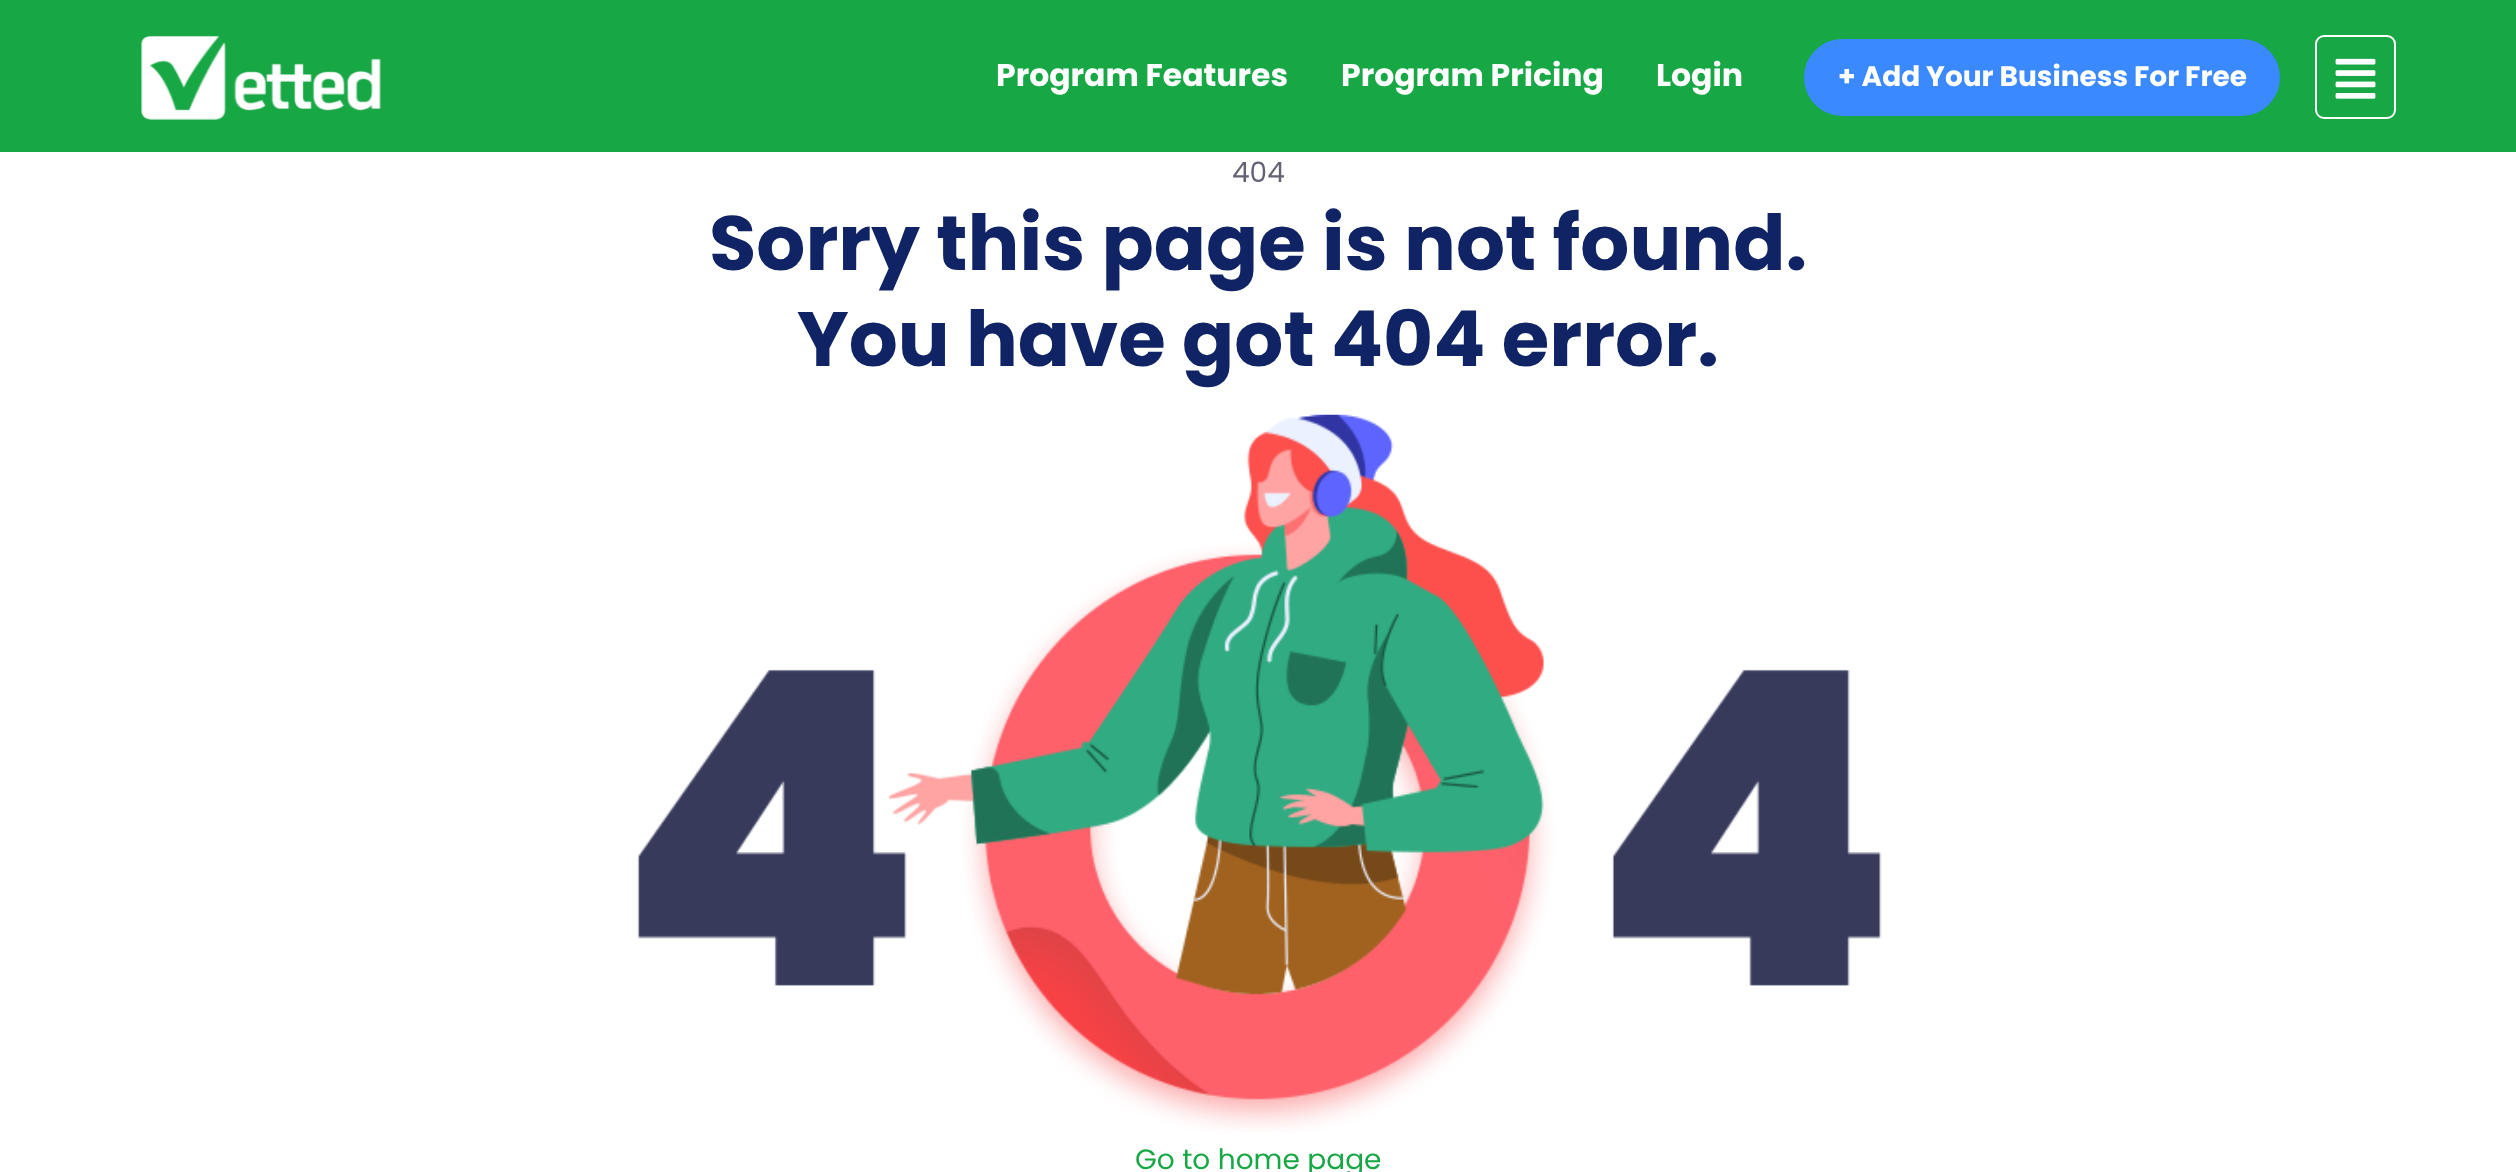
<svg xmlns="http://www.w3.org/2000/svg" width="2516" height="1172">
	<rect width="100%" height="100%" fill="#FFFFFF" />
	<rect x="0" y="0" width="2516" height="152" fill="#18A745" />
	<image x="141" y="35" width="240" height="85" href="assets/img1.png" />
	<g font-family="Poppins" font-size="31.5" font-weight="700" fill="#FFFFFF">
		<text x="996" y="86">Program Features</text>
		<text x="1341" y="86">Program Pricing</text>
		<text x="1656" y="86">Login</text>
	</g>
	<rect x="1806.5" y="41.5" width="471" height="72" rx="36" fill="#3A89FF" stroke="#3A89FF" stroke-width="5" />
	<text x="1838" y="86" font-family="Poppins" font-size="28" font-weight="700" fill="#FFFFFF">+ Add Your Business For Free</text>
	<rect x="2316" y="36" width="79" height="82" rx="8" fill="none" stroke="#FFFFFF" stroke-width="2" />
	<image x="2335" y="58" width="41" height="41" href="assets/img2.png" />
	<text x="1232" y="182" font-family="Poppins" font-size="28" fill="#666276">404</text>
	<g font-family="Poppins" font-size="77" font-weight="700" fill="#102465">
		<text x="709" y="270">Sorry this page is not found.</text>
		<text x="797" y="366">You have got 404 error.</text>
	</g>
	<image x="637" y="414" width="1245" height="718" href="assets/img3.png" />
	<text x="1135" y="1169" font-family="Poppins" font-size="28" fill="#18A745">Go to home page</text>
</svg>
